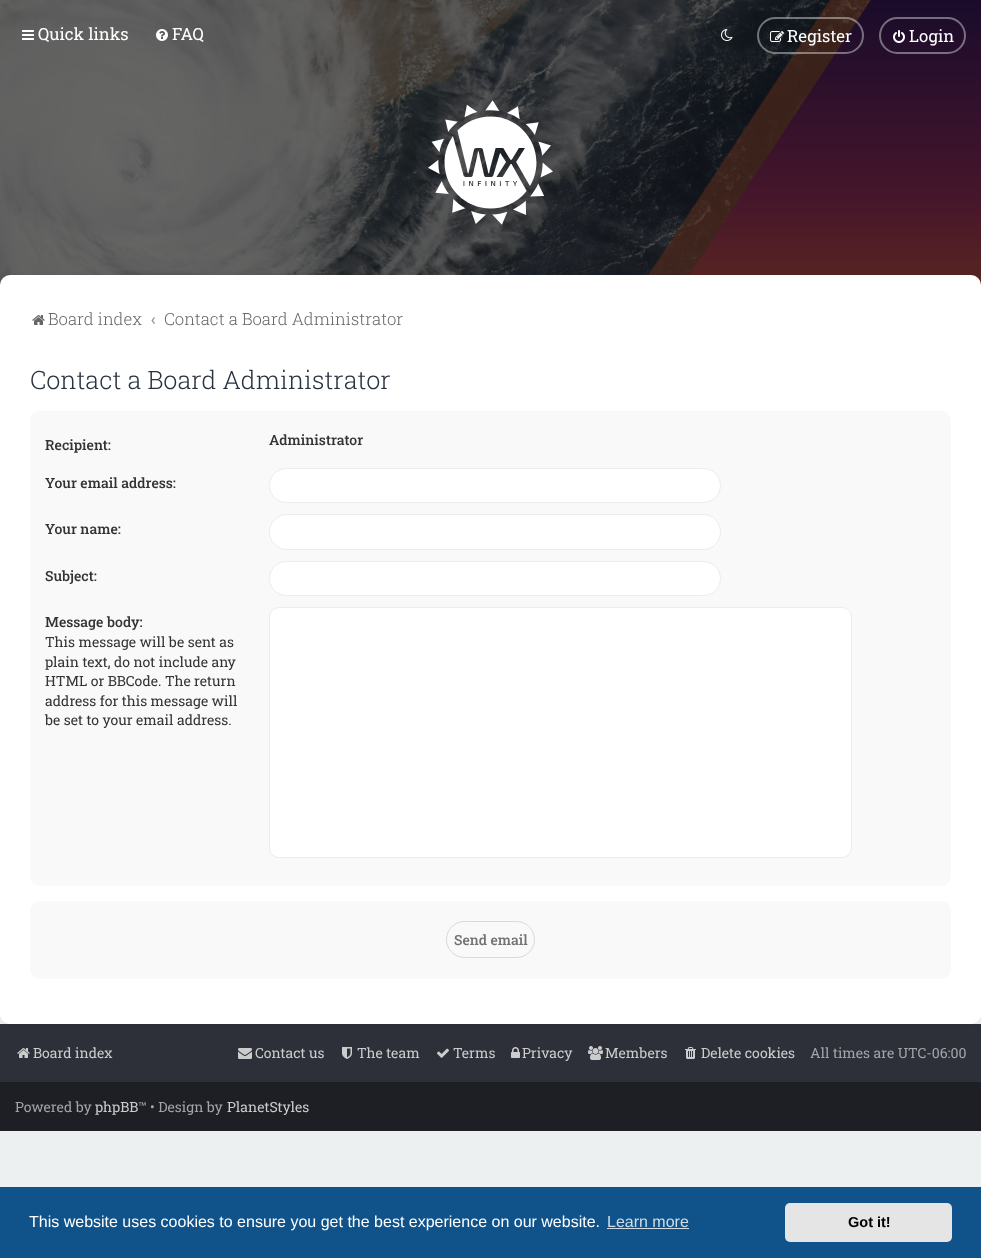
<svg xmlns="http://www.w3.org/2000/svg" width="981" height="1258">
	<rect width="100%" height="100%" fill="#ECF0F1" />
	<image x="0" y="0" width="981" height="285" href="assets/img1.png" />
	<image x="22" y="30" width="12" height="10" href="assets/img2.png" />
	<text x="38" y="40" font-family="Roboto Slab" font-size="16.75" fill="#FFFFFF">Quick links</text>
	<image x="156" y="29" width="12" height="12" href="assets/img3.png" />
	<text x="172" y="40" font-family="Roboto Slab" font-size="16.75" fill="#FFFFFF">FAQ</text>
	<image x="721" y="29" width="12" height="12" href="assets/img4.png" />
	<rect x="758" y="18" width="105" height="35" rx="17.5" fill="none" stroke="#FFFFFF" stroke-opacity="0.4" stroke-width="2" />
	<image x="770" y="31" width="14" height="11" href="assets/img5.png" />
	<text x="787" y="42" font-family="Roboto Slab" font-size="16.75" fill="#FFFFFF">Register</text>
	<rect x="880" y="18" width="85" height="35" rx="17.5" fill="none" stroke="#FFFFFF" stroke-opacity="0.4" stroke-width="2" />
	<image x="893" y="30" width="12" height="13" href="assets/img6.png" />
	<text x="909" y="42" font-family="Roboto Slab" font-size="16.75" fill="#FFFFFF">Login</text>
	<image x="428" y="100" width="125" height="125" href="assets/img7.png" />
	<rect x="0" y="1024" width="981" height="58" fill="#2D3039" />
	<rect x="0" y="275" width="981" height="749" rx="10" fill="#000000" fill-opacity="0.05" filter="blur(2.5px)" />
	<rect x="0" y="275" width="981" height="749" rx="10" fill="#FFFFFF" />
	<image x="32" y="315" width="13" height="10" href="assets/img8.png" />
	<text x="48" y="325" font-family="Roboto Slab" font-size="16.75" font-weight="300" fill="#676767">Board index</text>
	<text x="151" y="325" font-family="Roboto Slab" font-size="16.75" font-weight="500" fill="#999999">‹</text>
	<text x="164" y="325" font-family="Roboto Slab" font-size="16.75" font-weight="300" fill="#676767">Contact a Board Administrator</text>
	<text x="30" y="389" font-family="Roboto Slab" font-size="25.25" font-weight="300" fill="#28313F">Contact a Board Administrator</text>
	<rect x="30" y="411" width="921" height="475" rx="10" fill="#F9F9F9" />
	<g font-family="Roboto Slab" font-size="14" font-weight="500" fill="#333333">
		<text x="45" y="450">Recipient:</text>
		<text x="269" y="445">Administrator</text>
		<text x="45" y="488">Your email address:</text>
	</g>
	<rect x="269.5" y="468.5" width="451" height="34" rx="17" fill="#FFFFFF" stroke="#EDECEC" />
	<text x="45" y="534" font-family="Roboto Slab" font-size="14" font-weight="500" fill="#333333">Your name:</text>
	<rect x="269.5" y="514.5" width="451" height="35" rx="17.5" fill="#FFFFFF" stroke="#EDECEC" />
	<text x="45" y="581" font-family="Roboto Slab" font-size="14" font-weight="500" fill="#333333">Subject:</text>
	<rect x="269.5" y="561.5" width="451" height="34" rx="17" fill="#FFFFFF" stroke="#EDECEC" />
	<text x="45" y="627" font-family="Roboto Slab" font-size="14" font-weight="500" fill="#333333">Message body:</text>
	<g font-family="Roboto Slab" font-size="14" fill="#333333">
		<text x="45" y="647">This message will be sent as</text>
		<text x="45" y="667">plain text, do not include any</text>
		<text x="45" y="686">HTML or BBCode. The return</text>
		<text x="45" y="706">address for this message will</text>
		<text x="45" y="725">be set to your email address.</text>
	</g>
	<rect x="269.5" y="607.5" width="582" height="250" rx="9.5" fill="#FFFFFF" stroke="#EDECEC" />
	<rect x="30" y="901" width="921" height="78" rx="10" fill="#F9F9F9" />
	<rect x="446.5" y="921.5" width="88" height="36" rx="18" fill="none" stroke="#D9D9D9" />
	<text x="454" y="945" font-family="Roboto Slab" font-size="14" font-weight="500" fill="#717171">Send email</text>
	<image x="17" y="1048" width="13" height="10" href="assets/img9.png" />
	<text x="33" y="1058" font-family="Roboto Slab" font-size="14" fill="#CCCCCC">Board index</text>
	<image x="238" y="1048" width="14" height="11" href="assets/img10.png" />
	<text x="255" y="1058" font-family="Roboto Slab" font-size="14" fill="#CCCCCC">Contact us</text>
	<image x="342" y="1047" width="10" height="12" href="assets/img11.png" />
	<text x="357" y="1058" font-family="Roboto Slab" font-size="14" fill="#CCCCCC">The team</text>
	<image x="437" y="1048" width="12" height="10" href="assets/img12.png" />
	<text x="453" y="1058" font-family="Roboto Slab" font-size="14" fill="#CCCCCC">Terms</text>
	<image x="511" y="1047" width="9" height="11" href="assets/img13.png" />
	<text x="522" y="1058" font-family="Roboto Slab" font-size="14" fill="#CCCCCC">Privacy</text>
	<image x="588" y="1046" width="15" height="14" href="assets/img14.png" />
	<text x="605" y="1058" font-family="Roboto Slab" font-size="14" fill="#CCCCCC">Members</text>
	<image x="685" y="1047" width="11" height="12" href="assets/img15.png" />
	<text x="701" y="1058" font-family="Roboto Slab" font-size="14" fill="#CCCCCC">Delete cookies</text>
	<text x="810" y="1058" font-family="Roboto Slab" font-size="14" fill="#A4A4A7">All times are UTC-06:00</text>
	<rect x="0" y="1082" width="981" height="49" fill="#1D1F25" />
	<text x="15" y="1112" font-family="Roboto Slab" font-size="14" fill="#A4A4A7">Powered by</text>
	<text x="95" y="1112" font-family="Roboto Slab" font-size="14" fill="#CCCCCC">phpBB</text>
	<text x="138" y="1112" font-family="Roboto Slab" font-size="14" fill="#A4A4A7">™ • Design by</text>
	<text x="227" y="1112" font-family="Roboto Slab" font-size="14" fill="#CCCCCC">PlanetStyles</text>
	<rect x="0" y="1187" width="981" height="71" fill="#0F538A" />
	<text x="29" y="1227" font-family="Liberation Sans" font-size="16" fill="#FFFFFF">This website uses cookies to ensure you get the best experience on our website.</text>
	<text x="607" y="1227" font-family="Liberation Sans" font-size="16" fill="#CFDDE8">Learn more</text>
	<rect x="607" y="1228" width="82" height="1" fill="#CFDDE8" />
	<rect x="785" y="1203" width="167" height="39" rx="5" fill="#E5E5E5" />
	<text x="848" y="1227" font-family="Liberation Sans" font-size="14.5" font-weight="700" fill="#000000">Got it!</text>
</svg>
